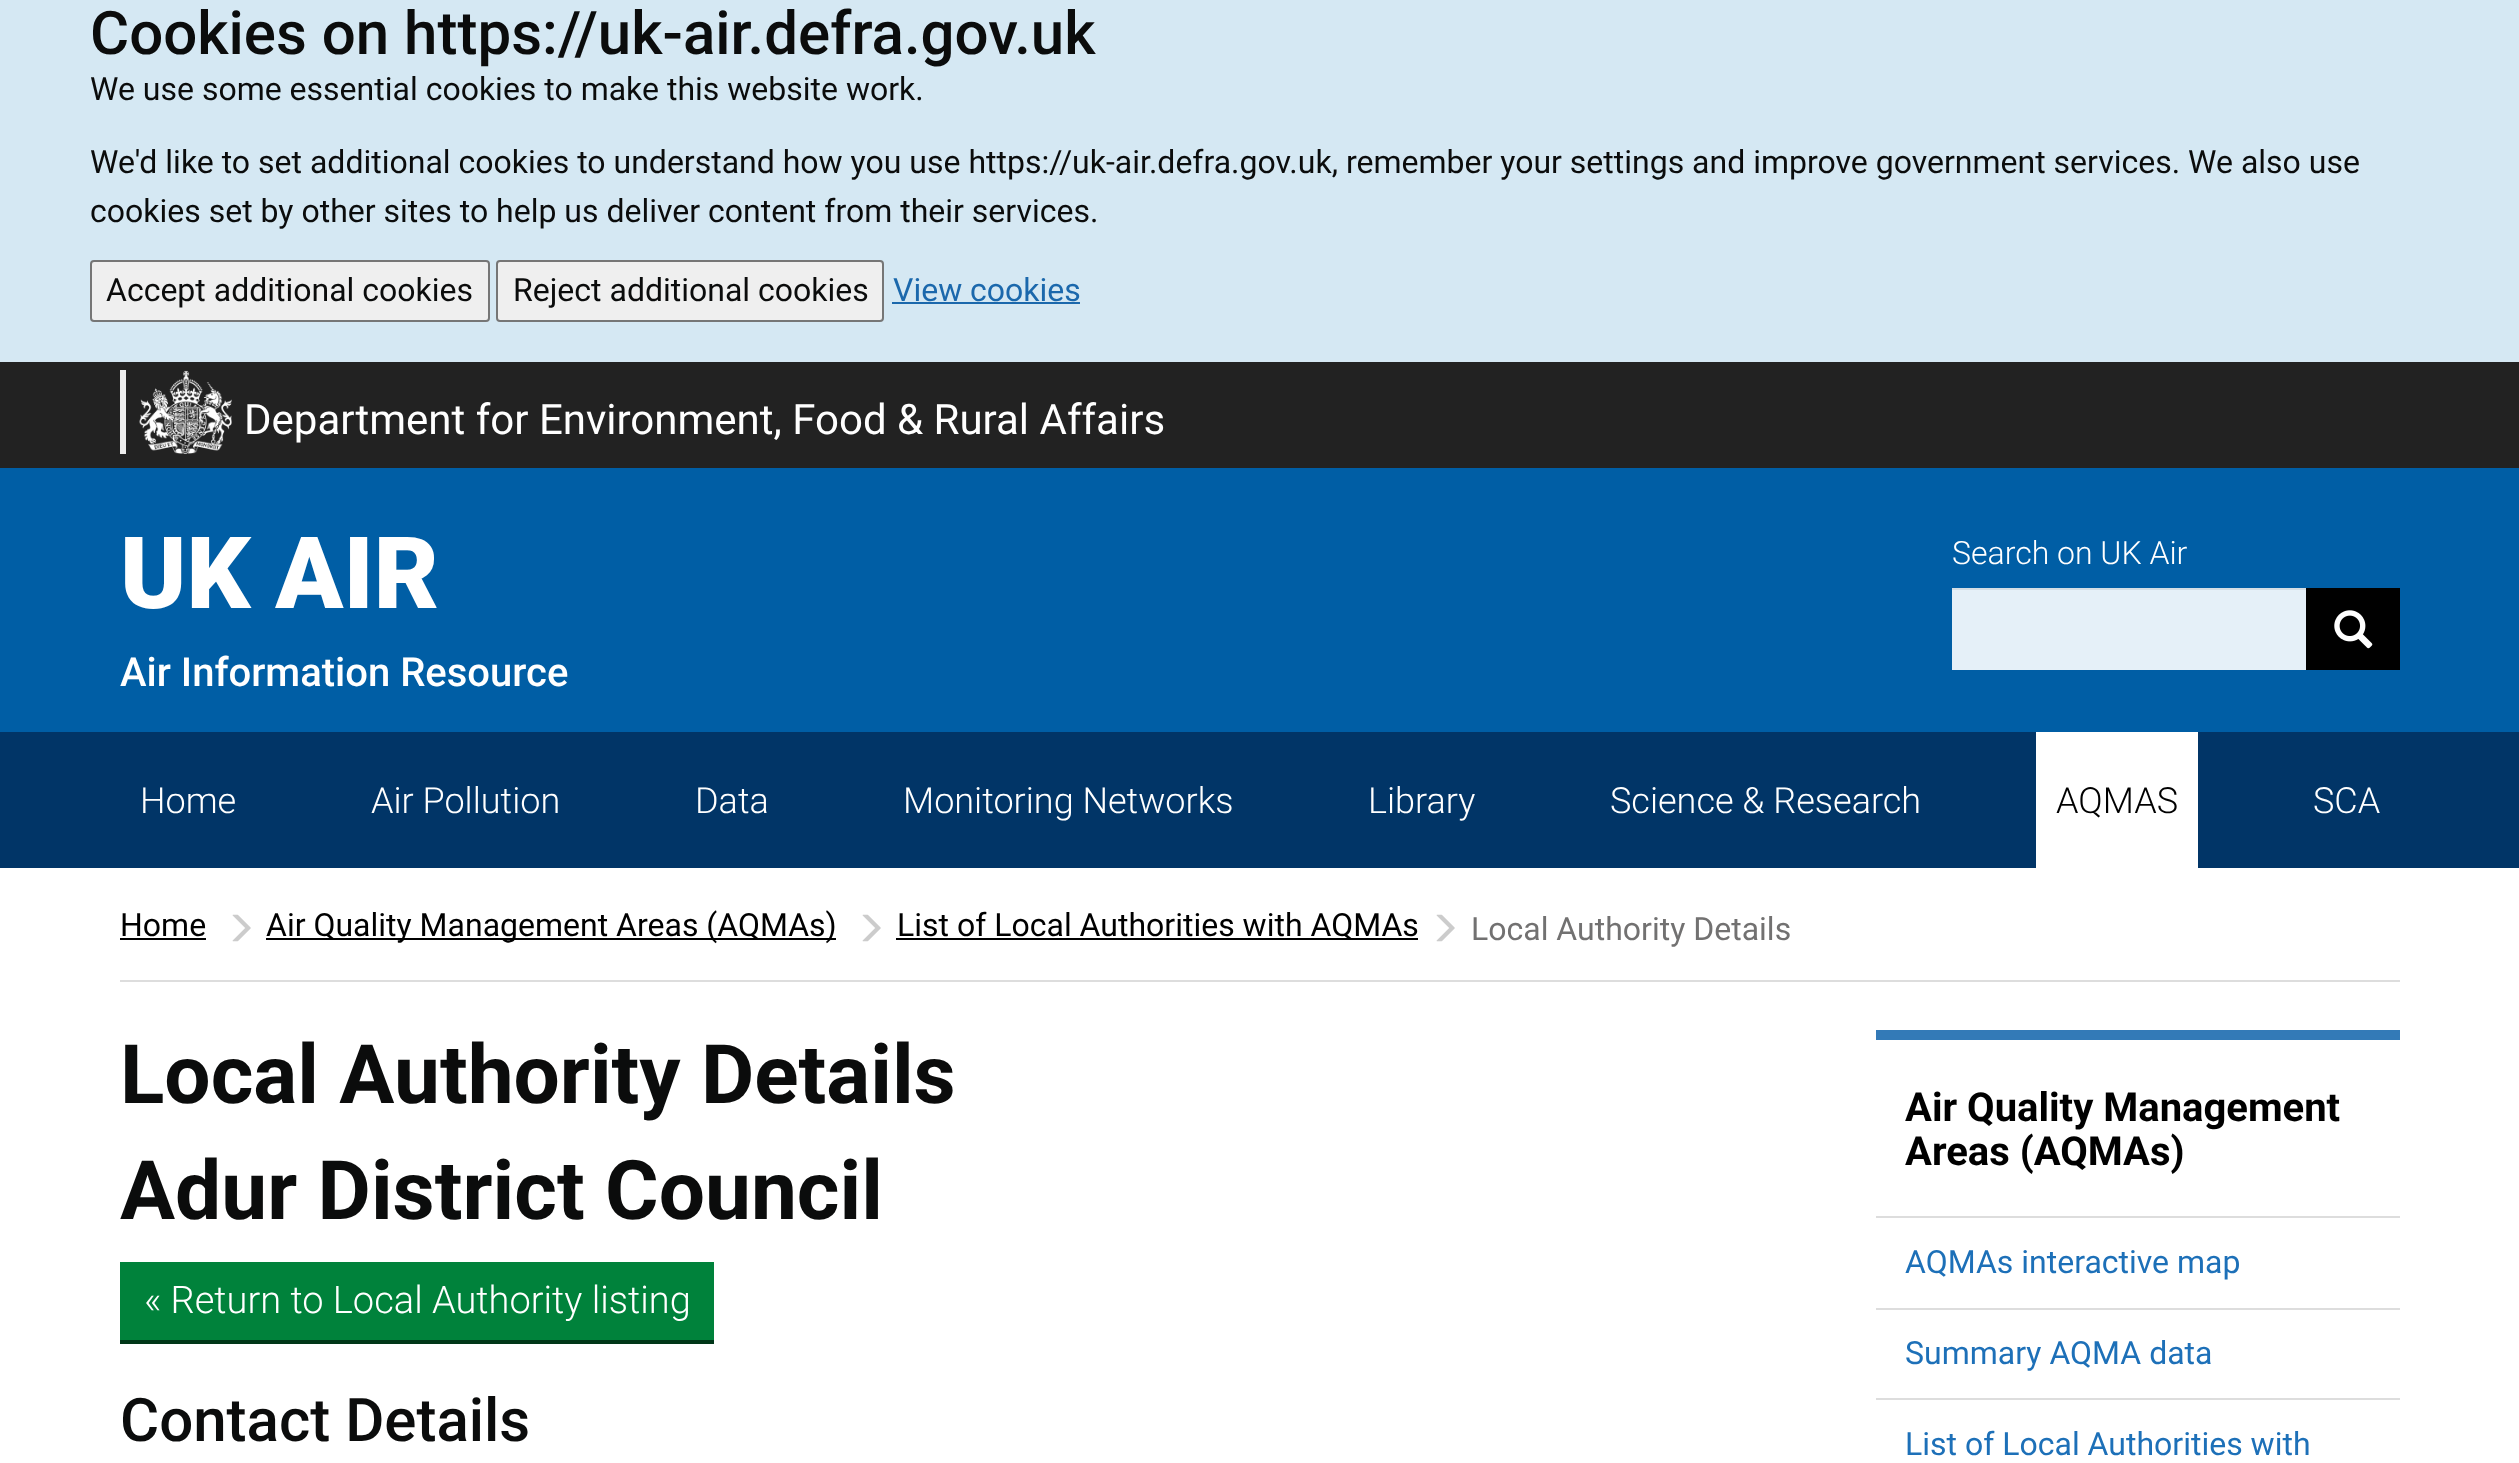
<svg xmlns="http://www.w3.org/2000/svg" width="2519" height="1463">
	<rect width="100%" height="100%" fill="#FFFFFF" />
	<rect x="0" y="0" width="2519" height="362" fill="#D5E8F3" />
	<text x="90" y="54" font-family="Roboto" font-size="60" font-weight="500" fill="#0B0C0C">Cookies on https://uk-air.defra.gov.uk</text>
	<g font-family="Roboto" font-size="32" fill="#0B0C0C">
		<text x="90" y="100">We use some essential cookies to make this website work.</text>
		<text x="90" y="173">We'd like to set additional cookies to understand how you use https://uk-air.defra.gov.uk, remember your settings and improve government services. We also use</text>
		<text x="90" y="222">cookies set by other sites to help us deliver content from their services.</text>
	</g>
	<rect x="91" y="261" width="398" height="60" rx="3" fill="#EFEFEF" stroke="#767676" stroke-width="2" />
	<text x="106" y="301" font-family="Roboto" font-size="32" fill="#0B0C0C">Accept additional cookies</text>
	<rect x="497" y="261" width="386" height="60" rx="3" fill="#EFEFEF" stroke="#767676" stroke-width="2" />
	<text x="513" y="301" font-family="Roboto" font-size="32" fill="#0B0C0C">Reject additional cookies</text>
	<text x="893" y="301" font-family="Roboto" font-size="32" fill="#1B68AC">View cookies</text>
	<rect x="892" y="302" width="188" height="2" fill="#1B68AC" />
	<rect x="0" y="362" width="2519" height="106" fill="#222222" />
	<rect x="120" y="370" width="6" height="84" fill="#EEEEEE" />
	<image x="139" y="370" width="93" height="84" href="assets/img1.png" />
	<text x="244" y="434" font-family="Roboto" font-size="42" fill="#FFFFFF">Department for Environment, Food &amp; Rural Affairs</text>
	<rect x="0" y="468" width="2519" height="264" fill="#005EA5" />
	<text x="120" y="608" font-family="Roboto" font-size="100" font-weight="900" fill="#FFFFFF">UK AIR</text>
	<text x="120" y="686" font-family="Roboto" font-size="40" font-weight="500" fill="#FFFFFF">Air Information Resource</text>
	<text x="1952" y="564" font-family="Roboto" font-size="32" font-weight="300" fill="#FFFFFF">Search on UK Air</text>
	<rect x="1952" y="590" width="354" height="80" fill="#E5F0F8" />
	<rect x="1952" y="588" width="356" height="2" fill="#D4DEE5" />
	<rect x="2306" y="588" width="94" height="82" fill="#000000" />
	<image x="2334" y="610" width="39" height="39" href="assets/img2.png" />
	<rect x="0" y="732" width="2519" height="136" fill="#013567" />
	<g font-family="Roboto" font-size="36" font-weight="300" fill="#FFFFFF">
		<text x="140" y="813">Home</text>
		<text x="371" y="813">Air Pollution</text>
		<text x="695" y="813">Data</text>
		<text x="903" y="813">Monitoring Networks</text>
		<text x="1368" y="813">Library</text>
		<text x="1610" y="813">Science &amp; Research</text>
	</g>
	<rect x="2036" y="732" width="162" height="136" fill="#FFFFFF" />
	<text x="2056" y="813" font-family="Roboto" font-size="36" font-weight="300" fill="#000000">AQMAS</text>
	<text x="2313" y="813" font-family="Roboto" font-size="36" font-weight="300" fill="#FFFFFF">SCA</text>
	<rect x="120" y="980" width="2280" height="2" fill="#DDDDDD" />
	<text x="120" y="936" font-family="Roboto" font-size="32" fill="#000000">Home</text>
	<rect x="120" y="938" width="86" height="2" fill="#000000" />
	<image x="232" y="914" width="19" height="28" href="assets/img3.png" />
	<rect x="266" y="938" width="570" height="2" fill="#000000" />
	<text x="266" y="936" font-family="Roboto" font-size="32" fill="#000000">Air Quality Management Areas (AQMAs)</text>
	<image x="862" y="914" width="19" height="28" href="assets/img3.png" />
	<rect x="896" y="938" width="522" height="2" fill="#000000" />
	<text x="897" y="936" font-family="Roboto" font-size="32" fill="#000000">List of Local Authorities with AQMAs</text>
	<image x="1436" y="914" width="19" height="28" href="assets/img3.png" />
	<text x="1471" y="940" font-family="Roboto" font-size="32" fill="#727171">Local Authority Details</text>
	<g font-family="Roboto" font-size="82" font-weight="700" fill="#0B0C0C">
		<text x="120" y="1103">Local Authority Details</text>
		<text x="120" y="1219">Adur District Council</text>
	</g>
	<rect x="120" y="1340" width="594" height="4" fill="#003618" />
	<rect x="120" y="1262" width="594" height="78" fill="#00823B" />
	<text x="144" y="1313" font-family="Roboto" font-size="38" font-weight="300" fill="#FFFFFF">« Return to Local Authority listing</text>
	<text x="120" y="1441" font-family="Roboto" font-size="60" font-weight="500" fill="#0B0C0C">Contact Details</text>
	<rect x="1876" y="1030" width="524" height="10" fill="#337AB7" />
	<g font-family="Roboto" font-size="40" font-weight="700" fill="#000000">
		<text x="1905" y="1121">Air Quality Management</text>
		<text x="1905" y="1165">Areas (AQMAs)</text>
	</g>
	<rect x="1876" y="1216" width="524" height="2" fill="#DDDDDD" />
	<text x="1905" y="1273" font-family="Roboto" font-size="32" fill="#1D70B8">AQMAs interactive map</text>
	<rect x="1876" y="1308" width="524" height="2" fill="#DDDDDD" />
	<text x="1905" y="1364" font-family="Roboto" font-size="32" fill="#1D70B8">Summary AQMA data</text>
	<rect x="1876" y="1398" width="524" height="2" fill="#DDDDDD" />
	<text x="1905" y="1455" font-family="Roboto" font-size="32" fill="#1D70B8">List of Local Authorities with</text>
</svg>
